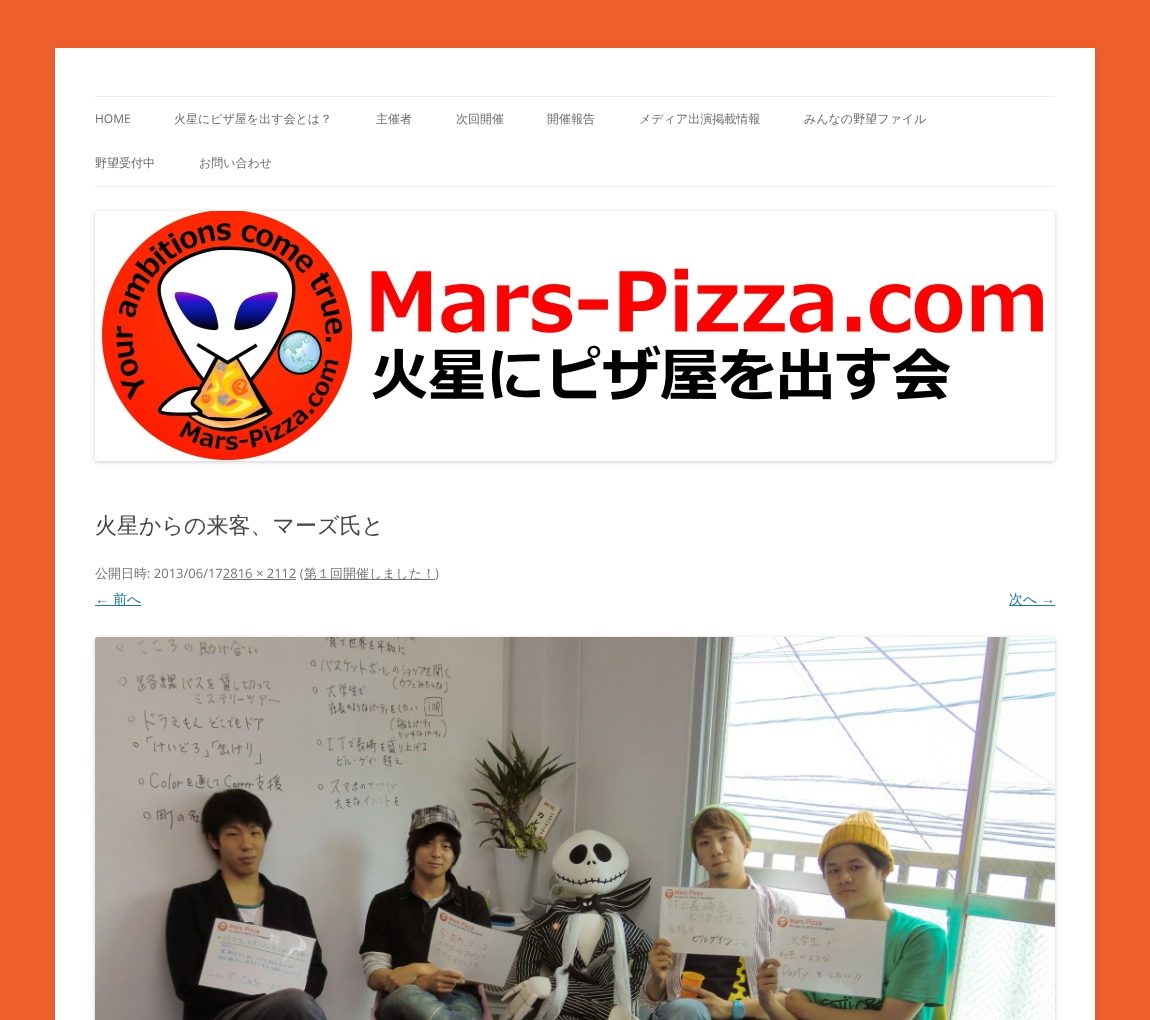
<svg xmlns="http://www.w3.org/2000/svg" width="1150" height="1020">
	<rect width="100%" height="100%" fill="#EF5F2B" />
	<rect x="55" y="50" width="1040" height="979" fill="#646464" fill-opacity="0.3" filter="blur(3px)" />
	<rect x="55" y="48" width="1040" height="972" fill="#FFFFFF" />
	<rect x="95" y="96" width="960" height="1" fill="#EDEDED" />
	<rect x="95" y="186" width="960" height="1" fill="#EDEDED" />
	<text x="95" y="123" font-family="Open Sans" font-size="12" fill="#6A6A6A">HOME</text>
	<g font-family="WenQuanYi Zen Hei" font-size="12" font-weight="500" fill="#6A6A6A">
		<text x="174" y="123">火星にピザ屋を出す会とは？</text>
		<text x="376" y="123">主催者</text>
		<text x="456" y="123">次回開催</text>
		<text x="547" y="123">開催報告</text>
		<text x="639" y="123">メディア出演掲載情報</text>
		<text x="804" y="123">みんなの野望ファイル</text>
		<text x="95" y="167">野望受付中</text>
		<text x="199" y="167">お問い合わせ</text>
	</g>
	<rect x="95" y="212" width="960" height="250" rx="3" fill="#000000" fill-opacity="0.2" filter="blur(2px)" />
	<image x="95" y="211" width="960" height="250" href="assets/img1.png" />
	<text x="95" y="533" font-family="WenQuanYi Zen Hei" font-size="22" font-weight="500" fill="#444444">火星からの来客、マーズ氏と</text>
	<text x="95" y="578" font-family="WenQuanYi Zen Hei" font-size="13" font-weight="500" fill="#757575">公開日時</text>
	<text x="147" y="578" font-family="Open Sans" font-size="13" fill="#757575">: 2013/06/172816 × 2112 (</text>
	<rect x="304" y="579" width="131" height="1" fill="#757575" />
	<text x="304" y="578" font-family="WenQuanYi Zen Hei" font-size="13" font-weight="500" fill="#757575">第１回開催しました！</text>
	<text x="435" y="578" font-family="Open Sans" font-size="13" fill="#757575">)</text>
	<rect x="223" y="579" width="73" height="1" fill="#757575" />
	<text x="95" y="604" font-family="Liberation Sans" font-size="14" fill="#21759B">←</text>
	<rect x="95" y="605" width="46" height="1" fill="#21759B" />
	<text x="113" y="604" font-family="WenQuanYi Zen Hei" font-size="14" font-weight="500" fill="#21759B">前へ</text>
	<rect x="1009" y="605" width="46" height="1" fill="#21759B" />
	<text x="1009" y="604" font-family="WenQuanYi Zen Hei" font-size="14" font-weight="500" fill="#21759B">次へ</text>
	<text x="1041" y="604" font-family="Liberation Sans" font-size="14" fill="#21759B">→</text>
	<rect x="95" y="638" width="960" height="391" rx="3" fill="#000000" fill-opacity="0.2" filter="blur(2px)" />
	<image x="95" y="637" width="960" height="383" href="assets/img2.png" />
</svg>
